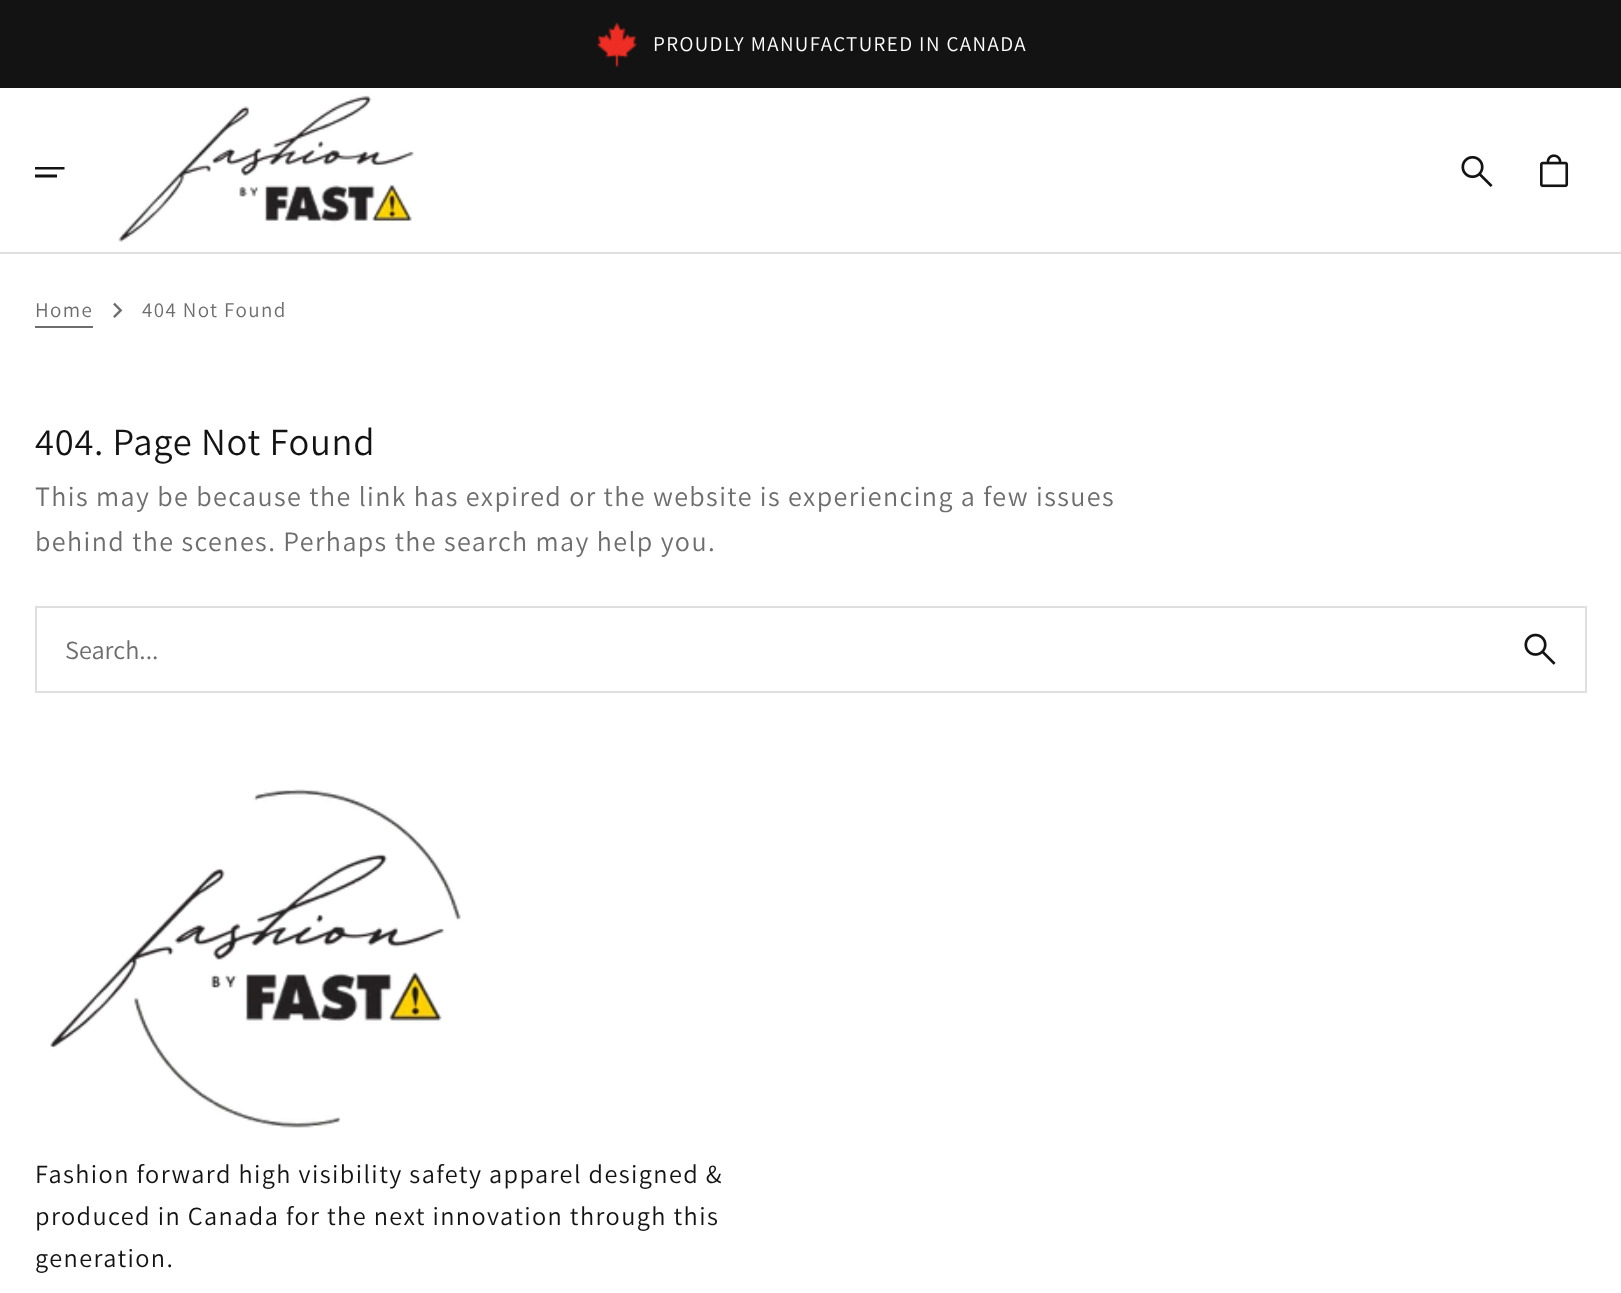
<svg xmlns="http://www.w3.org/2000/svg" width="1621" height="1293">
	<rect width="100%" height="100%" fill="#FFFFFF" />
	<rect x="0" y="0" width="1621" height="88" fill="#131313" />
	<image x="596" y="22" width="42" height="45" href="assets/img1.png" />
	<text x="653" y="51" font-family="Assistant" font-size="21" letter-spacing="1.4" fill="#FFFFFF">PROUDLY MANUFACTURED IN CANADA</text>
	<path d="M64.5 167H35V169.5H64.5ZM57 174.5H35V177.5H57Z" fill="#131313" fill-rule="evenodd" />
	<image x="118" y="95" width="296" height="147" href="assets/img2.png" />
	<image x="1461" y="155" width="32" height="32" href="assets/img3.png" />
	<image x="1540" y="154" width="29" height="34" href="assets/img4.png" />
	<rect x="0" y="252" width="1621" height="2" fill="#DFDFDF" />
	<text x="35" y="317" font-family="Assistant" font-size="21" letter-spacing="1.4" fill="#6D6D6D">Home</text>
	<rect x="35" y="326" width="58" height="2" fill="#6D6D6D" />
	<image x="113" y="302" width="10" height="16" href="assets/img5.png" />
	<text x="142" y="317" font-family="Assistant" font-size="21" letter-spacing="1.4" fill="#6D6D6D">404 Not Found</text>
	<text x="35" y="455" font-family="Assistant" font-size="38.5" letter-spacing="0.75" fill="#131313">404. Page Not Found</text>
	<g font-family="Assistant" font-size="28" letter-spacing="1.4" fill="#6D6D6D">
		<text x="35" y="506">This may be because the link has expired or the website is experiencing a few issues</text>
		<text x="35" y="551">behind the scenes. Perhaps the search may help you.</text>
	</g>
	<rect x="36" y="607" width="1550" height="85" fill="none" stroke="#DFDFDF" stroke-width="2" />
	<text x="65" y="659" font-family="Assistant" font-size="26.25" fill="#6D6D6D">Search...</text>
	<image x="1524" y="633" width="32" height="32" href="assets/img6.png" />
	<image x="50" y="789" width="411" height="339" href="assets/img7.png" />
	<g font-family="Assistant" font-size="26.25" letter-spacing="1.4" fill="#131313">
		<text x="35" y="1183">Fashion forward high visibility safety apparel designed &amp;</text>
		<text x="35" y="1225">produced in Canada for the next innovation through this</text>
		<text x="35" y="1267">generation.</text>
	</g>
</svg>
